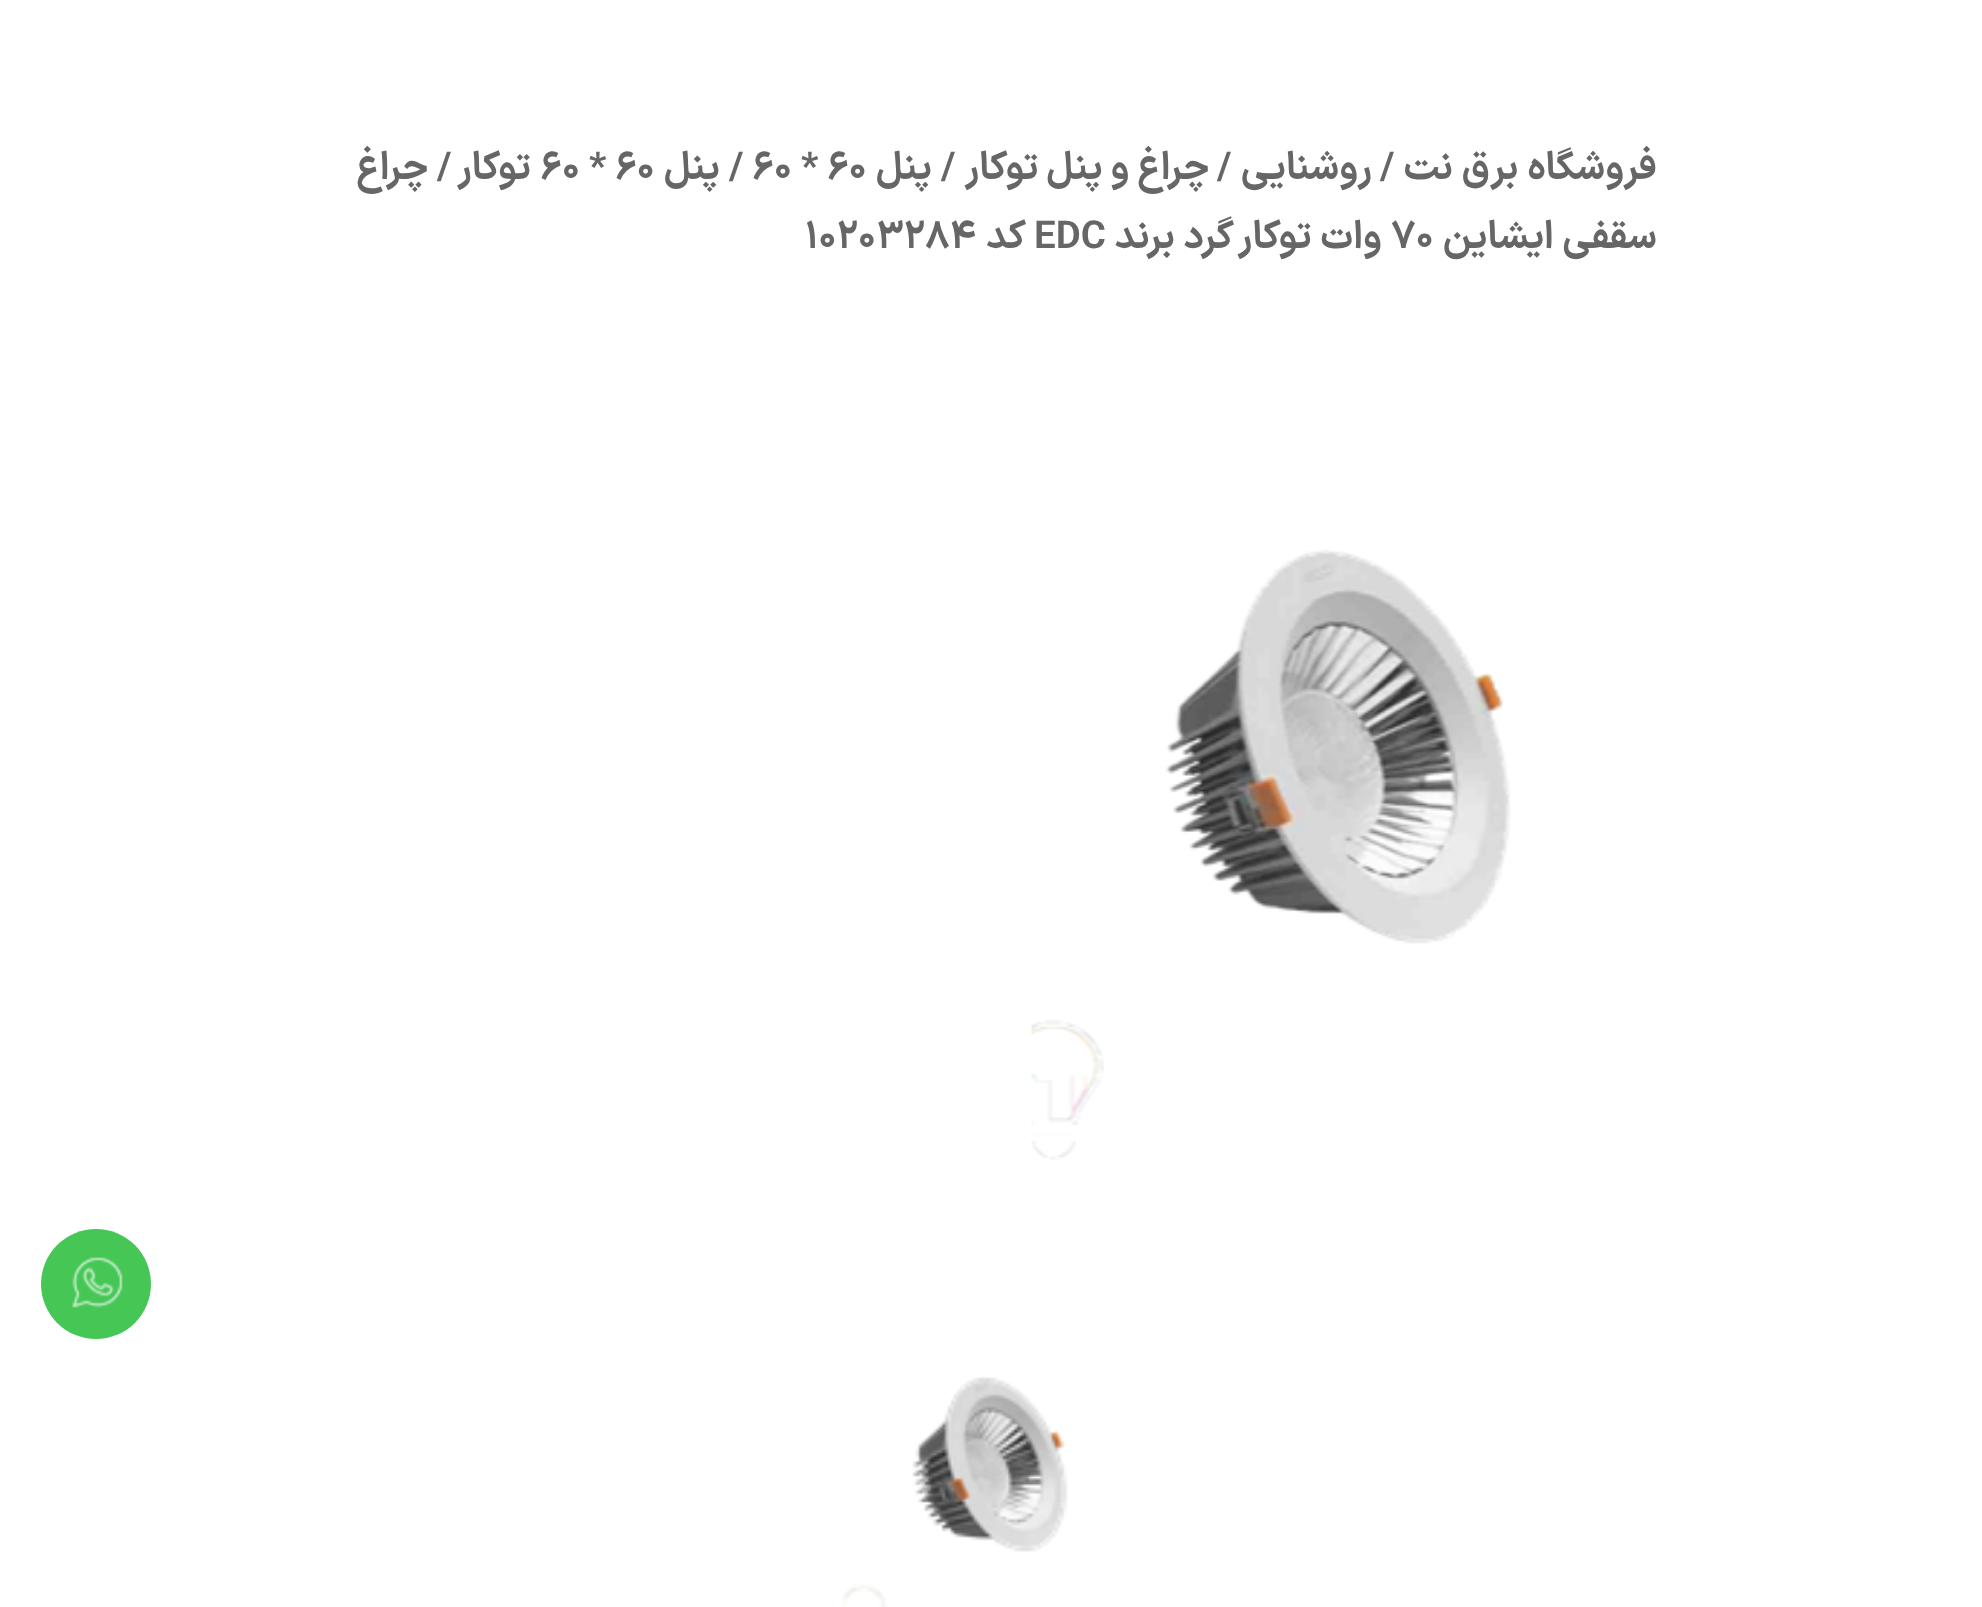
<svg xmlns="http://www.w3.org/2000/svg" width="1982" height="1607">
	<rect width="100%" height="100%" fill="#FFFFFF" />
	<text x="1657" y="179" font-family="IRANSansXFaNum" font-size="38.5" font-weight="700" direction="rtl" fill="#666666">فروشگاه برق نت</text>
	<text x="1380" y="179" font-family="IRANSansXFaNum" font-size="38.5" font-weight="700" fill="#666666">/</text>
	<text x="1372" y="179" font-family="IRANSansXFaNum" font-size="38.5" font-weight="700" direction="rtl" fill="#666666">روشنایی</text>
	<text x="1217" y="179" font-family="IRANSansXFaNum" font-size="38.5" font-weight="700" fill="#666666">/</text>
	<text x="1209" y="179" word-spacing="-1" font-family="IRANSansXFaNum" font-size="38.5" font-weight="700" direction="rtl" fill="#666666">چراغ و پنل توکار</text>
	<text x="941" y="179" font-family="IRANSansXFaNum" font-size="38.5" font-weight="700" fill="#666666">/</text>
	<text x="932" y="179" font-family="IRANSansXFaNum" font-size="38.5" font-weight="700" direction="rtl" fill="#666666">پنل</text>
	<g font-family="IRANSansXFaNum" font-size="38.5" font-weight="700" fill="#666666">
		<text x="752" y="179">60 * 60</text>
		<text x="729" y="179">/</text>
	</g>
	<text x="720" y="179" font-family="IRANSansXFaNum" font-size="38.5" font-weight="700" direction="rtl" fill="#666666">پنل</text>
	<text x="540" y="179" font-family="IRANSansXFaNum" font-size="38.5" font-weight="700" fill="#666666">60 * 60</text>
	<text x="531" y="179" font-family="IRANSansXFaNum" font-size="38.5" font-weight="700" direction="rtl" fill="#666666">توکار</text>
	<text x="437" y="179" font-family="IRANSansXFaNum" font-size="38.5" font-weight="700" fill="#666666">/</text>
	<g font-family="IRANSansXFaNum" font-size="38.5" font-weight="700" direction="rtl" fill="#666666">
		<text x="428" y="179">چراغ</text>
		<text x="1657" y="248">سقفى ایشاین</text>
	</g>
	<text x="1391" y="248" font-family="IRANSansXFaNum" font-size="38.5" font-weight="700" fill="#666666">70</text>
	<text x="1382" y="248" font-family="IRANSansXFaNum" font-size="38.5" font-weight="700" direction="rtl" fill="#666666">وات توکار گرد برند</text>
	<text x="1034" y="248" font-family="IRANSansXFaNum" font-size="38.5" font-weight="700" fill="#666666">EDC</text>
	<text x="1026" y="248" font-family="IRANSansXFaNum" font-size="38.5" font-weight="700" direction="rtl" fill="#666666">کد</text>
	<text x="805" y="248" font-family="IRANSansXFaNum" font-size="38.5" font-weight="700" fill="#666666">10203284</text>
	<image x="1031" y="549" width="480" height="611" href="assets/img1.png" />
	<image x="842" y="1376" width="226" height="231" href="assets/img2.png" />
	<circle cx="96" cy="1284" r="55" fill="#45C655" />
	<image x="72" y="1257" width="51" height="51" href="assets/img3.png" />
</svg>
